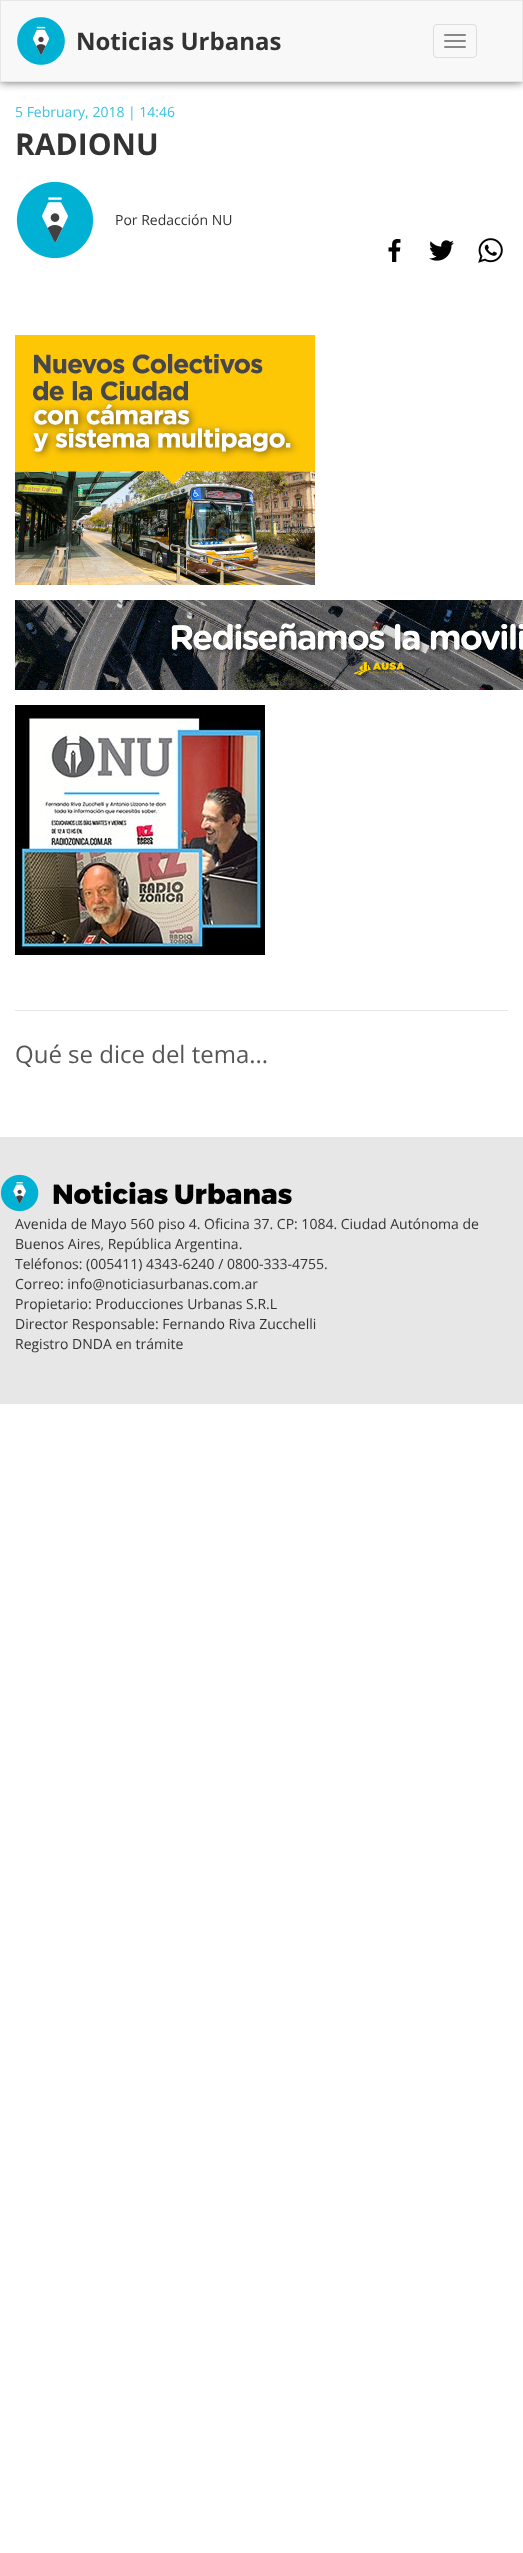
<svg xmlns="http://www.w3.org/2000/svg" width="523" height="2553">
	<rect width="100%" height="100%" fill="#FFFFFF" />
	<rect x="0" y="0" width="523" height="82" fill="#666666" filter="blur(5px)" />
	<rect x="0.5" y="0.5" width="522" height="81" fill="#F8F8F8" stroke="#E7E7E7" />
	<image x="17" y="17" width="48" height="48" href="assets/img1.png" />
	<text x="76" y="50" font-family="Open Sans" font-size="24" font-weight="700" fill="#333333">Noticias Urbanas</text>
	<rect x="433.5" y="24.5" width="43" height="33" rx="3.5" fill="none" stroke="#DDDDDD" />
	<rect x="444" y="34" width="22" height="2" rx="1" fill="#888888" />
	<rect x="444" y="40" width="22" height="2" rx="1" fill="#888888" />
	<rect x="444" y="46" width="22" height="2" rx="1" fill="#888888" />
	<text x="15" y="117" font-family="Open Sans" font-size="14" fill="#3AC2E1">5 February, 2018 | 14:46</text>
	<text x="15" y="155" font-family="Open Sans" font-size="30" font-weight="700" fill="#333333">RADIONU</text>
	<image x="16" y="181" width="78" height="78" href="assets/img2.png" />
	<text x="115" y="225" font-family="Open Sans" font-size="14" fill="#333333">Por Redacción NU</text>
	<image x="388" y="239" width="13" height="23" href="assets/img3.png" />
	<image x="429" y="240" width="25" height="21" href="assets/img4.png" />
	<image x="478" y="238" width="25" height="25" href="assets/img5.png" />
	<image x="15" y="335" width="300" height="250" href="assets/img6.png" />
	<image x="15" y="600" width="508" height="90" href="assets/img7.png" />
	<image x="15" y="705" width="250" height="250" href="assets/img8.png" />
	<rect x="15" y="1010" width="493" height="1" fill="#E7E7E7" />
	<text x="15" y="1063" font-family="Open Sans" font-size="24" fill="#565656">Qué se dice del tema...</text>
	<rect x="0" y="1137" width="523" height="267" fill="#E7E7E7" />
	<image x="0" y="1174" width="292" height="38" href="assets/img9.png" />
	<g font-family="Open Sans" font-size="14" fill="#333333">
		<text x="15" y="1229">Avenida de Mayo 560 piso 4. Oficina 37. CP: 1084. Ciudad Autónoma de</text>
		<text x="15" y="1249">Buenos Aires, República Argentina.</text>
		<text x="15" y="1269">Teléfonos: (005411) 4343-6240 / 0800-333-4755.</text>
		<text x="15" y="1289">Correo: info@noticiasurbanas.com.ar</text>
		<text x="15" y="1309">Propietario: Producciones Urbanas S.R.L</text>
		<text x="15" y="1329">Director Responsable: Fernando Riva Zucchelli</text>
		<text x="15" y="1349">Registro DNDA en trámite</text>
	</g>
</svg>
